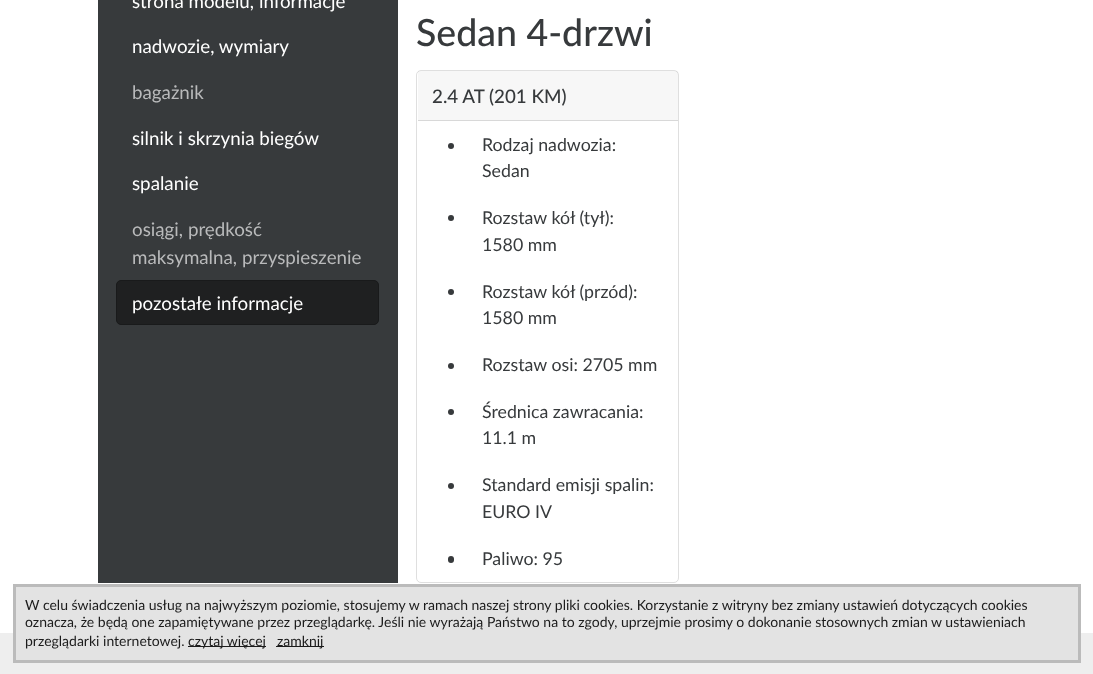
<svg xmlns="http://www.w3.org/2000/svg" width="1093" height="674">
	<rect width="100%" height="100%" fill="#FFFFFF" />
	<rect x="98" y="0" width="300" height="583" fill="#373A3C" />
	<g font-family="Lato" font-size="18.75" fill="#FFFFFF">
		<text x="132" y="8">strona modelu, informacje</text>
		<text x="132" y="53">nadwozie, wymiary</text>
	</g>
	<text x="132" y="99" font-family="Lato" font-size="18.75" fill="#B9BABB">bagażnik</text>
	<g font-family="Lato" font-size="18.75" fill="#FFFFFF">
		<text x="132" y="145">silnik i skrzynia biegów</text>
		<text x="132" y="190">spalanie</text>
	</g>
	<g font-family="Lato" font-size="18.75" fill="#B9BABB">
		<text x="132" y="236">osiągi, prędkość</text>
		<text x="132" y="264">maksymalna, przyspieszenie</text>
	</g>
	<rect x="116.5" y="280.5" width="262" height="44" rx="4.5" fill="#1F2021" stroke="#191A1B" />
	<text x="132" y="310" font-family="Lato" font-size="18.75" fill="#FFFFFF">pozostałe informacje</text>
	<text x="416" y="46" font-family="Lato" font-size="37.5" font-weight="500" fill="#373A3C">Sedan 4-drzwi</text>
	<rect x="416.5" y="70.5" width="262" height="512" rx="4.5" fill="none" stroke="#DFDFDF" />
	<rect x="418" y="71" width="260" height="49" fill="#000000" fill-opacity="0.03" />
	<rect x="418" y="120" width="260" height="1" fill="#D8D8D8" />
	<text x="432" y="103" font-family="Lato" font-size="18.75" font-weight="500" fill="#373A3C">2.4 AT (201 KM)</text>
	<circle cx="451" cy="146" r="3" fill="#373A3C" />
	<g font-family="Lato" font-size="17.75" fill="#373A3C">
		<text x="482" y="151">Rodzaj nadwozia:</text>
		<text x="482" y="177">Sedan</text>
	</g>
	<circle cx="451" cy="218" r="3" fill="#373A3C" />
	<g font-family="Lato" font-size="17.75" fill="#373A3C">
		<text x="482" y="224">Rozstaw kół (tył):</text>
		<text x="482" y="251">1580 mm</text>
	</g>
	<circle cx="451" cy="292" r="3" fill="#373A3C" />
	<g font-family="Lato" font-size="17.75" fill="#373A3C">
		<text x="482" y="298">Rozstaw kół (przód):</text>
		<text x="482" y="324">1580 mm</text>
	</g>
	<circle cx="451" cy="366" r="3" fill="#373A3C" />
	<text x="482" y="371" font-family="Lato" font-size="17.75" fill="#373A3C">Rozstaw osi: 2705 mm</text>
	<circle cx="451" cy="412" r="3" fill="#373A3C" />
	<g font-family="Lato" font-size="17.75" fill="#373A3C">
		<text x="482" y="418">Średnica zawracania:</text>
		<text x="482" y="444">11.1 m</text>
	</g>
	<circle cx="451" cy="486" r="3" fill="#373A3C" />
	<g font-family="Lato" font-size="17.75" fill="#373A3C">
		<text x="482" y="491">Standard emisji spalin:</text>
		<text x="482" y="518">EURO IV</text>
	</g>
	<rect x="448" y="556" width="6" height="7" rx="3" fill="#373A3C" />
	<text x="482" y="565" font-family="Lato" font-size="17.75" fill="#373A3C">Paliwo: 95</text>
	<rect x="0" y="633" width="1093" height="41" fill="#EEEEEE" />
	<rect x="14.5" y="585.5" width="1065" height="76" fill="#E3E3E3" stroke="#BBBBBB" stroke-width="3" />
	<g font-family="Lato" font-size="14" fill="#1B1B1B">
		<text x="25" y="610">W celu świadczenia usług na najwyższym poziomie, stosujemy w ramach naszej strony pliki cookies. Korzystanie z witryny bez zmiany ustawień dotyczących cookies</text>
		<text x="25" y="627">oznacza, że będą one zapamiętywane przez przeglądarkę. Jeśli nie wyrażają Państwo na to zgody, uprzejmie prosimy o dokonanie stosownych zmian w ustawieniach</text>
		<text x="25" y="646">przeglądarki internetowej.</text>
	</g>
	<rect x="188" y="646" width="78" height="1" fill="#1B1B1B" />
	<text x="188" y="646" font-family="Lato" font-size="14" fill="#1B1B1B">czytaj więcej</text>
	<rect x="276" y="646" width="48" height="1" fill="#1B1B1B" />
	<text x="277" y="646" font-family="Lato" font-size="14" fill="#1B1B1B">zamknij</text>
</svg>
